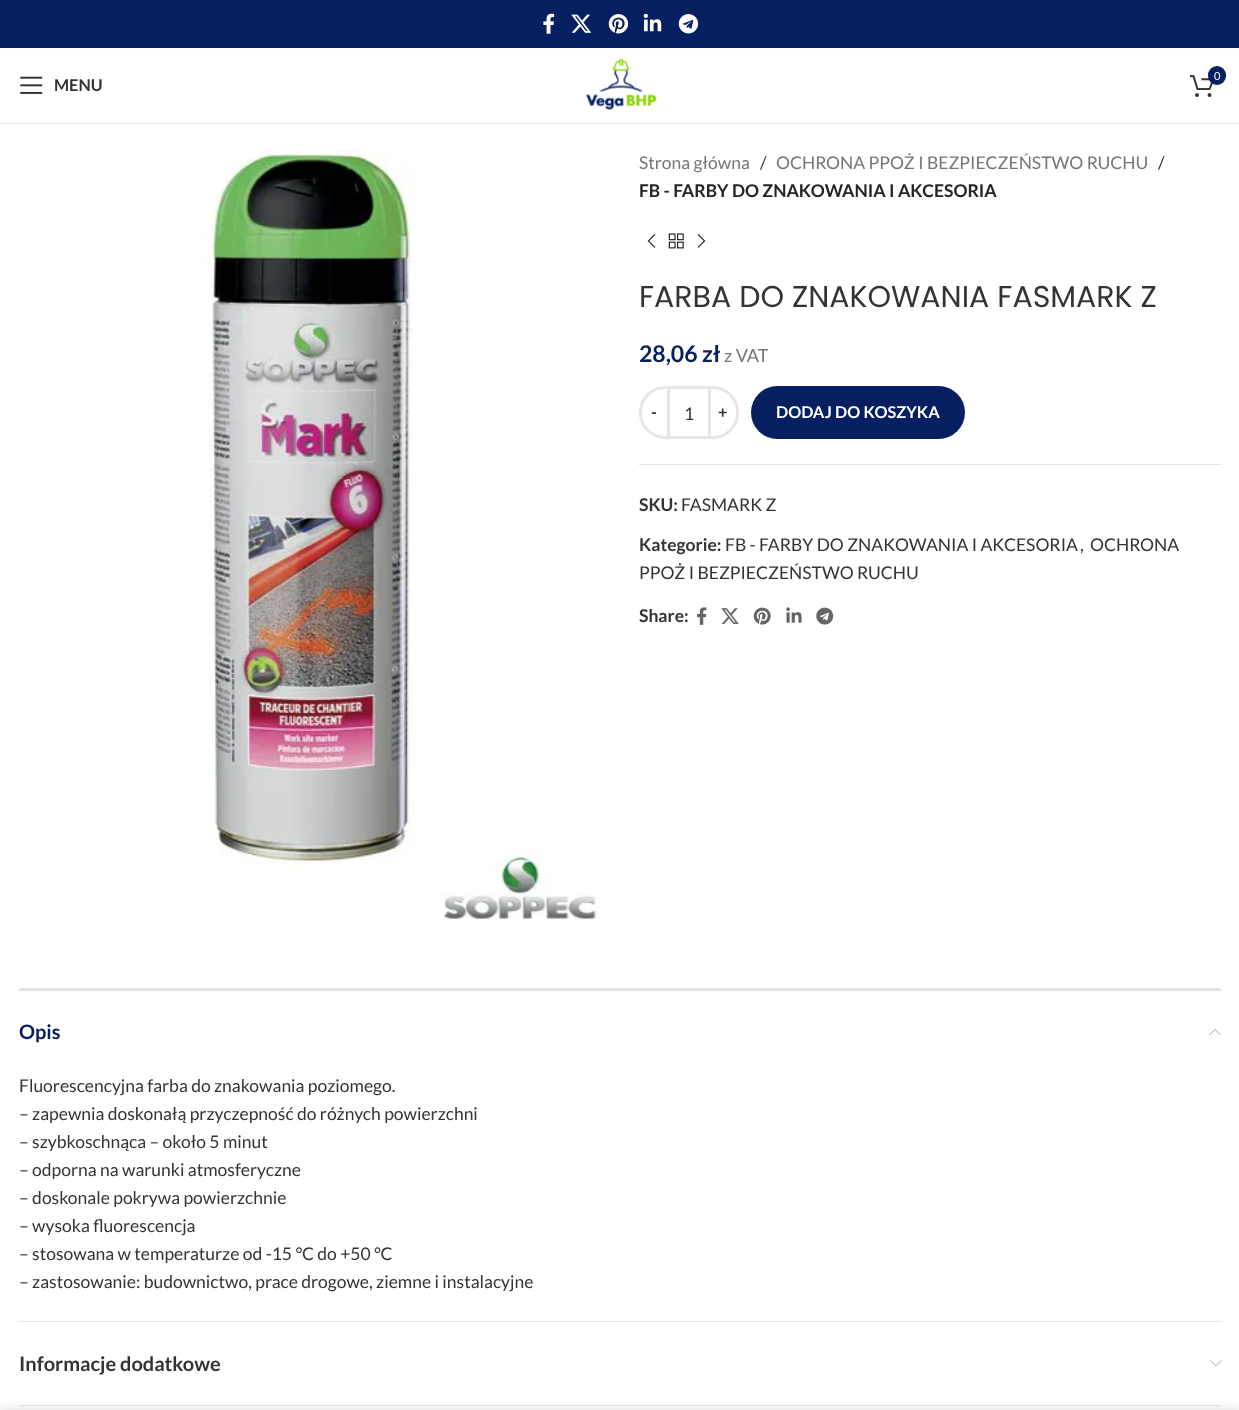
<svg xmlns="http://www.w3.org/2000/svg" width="1239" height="1410">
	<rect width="100%" height="100%" fill="#FFFFFF" />
	<rect x="0" y="0" width="1239" height="48" fill="#061F61" />
	<image x="543" y="13" width="12" height="21" href="assets/img1.png" />
	<image x="571" y="14" width="21" height="19" href="assets/img2.png" />
	<image x="608" y="14" width="21" height="20" href="assets/img3.png" />
	<image x="643" y="13" width="19" height="19" href="assets/img4.png" />
	<image x="678" y="14" width="21" height="20" href="assets/img5.png" />
	<rect x="0" y="123" width="1239" height="1" fill="#E8E8E8" />
	<image x="586" y="58" width="71" height="52" href="assets/img6.png" />
	<image x="1190" y="75" width="23" height="22" href="assets/img7.png" />
	<rect x="1208" y="66" width="18" height="19" rx="9" fill="#061F61" />
	<text x="1214" y="80" font-family="Lato" font-size="11" fill="#FFFFFF">0</text>
	<image x="20" y="76" width="23" height="18" href="assets/img8.png" />
	<text x="54" y="91" font-family="Lato" font-size="16.25" font-weight="700" fill="#333333">MENU</text>
	<image x="205" y="149" width="394" height="772" href="assets/img9.png" />
	<text x="639" y="169" font-family="Lato" font-size="17.5" fill="#767676">Strona główna</text>
	<text x="760" y="169" font-family="Lato" font-size="17.5" fill="#333333">/</text>
	<text x="776" y="169" font-family="Lato" font-size="17.5" fill="#767676">OCHRONA PPOŻ I BEZPIECZEŃSTWO RUCHU</text>
	<text x="1158" y="169" font-family="Lato" font-size="17.5" fill="#333333">/</text>
	<text x="639" y="197" font-family="Lato" font-size="17.5" font-weight="700" fill="#242424">FB - FARBY DO ZNAKOWANIA I AKCESORIA</text>
	<image x="647" y="234" width="9" height="14" href="assets/img10.png" />
	<image x="668" y="233" width="16" height="16" href="assets/img11.png" />
	<image x="697" y="234" width="9" height="14" href="assets/img12.png" />
	<text x="639" y="307" font-family="Poppins" font-size="30" fill="#333333">FARBA DO ZNAKOWANIA FASMARK Z</text>
	<text x="639" y="362" font-family="Lato" font-size="23" font-weight="700" fill="#061F61">28,06 zł</text>
	<text x="724" y="362" font-family="Lato" font-size="18" fill="#767676">z VAT</text>
	<path d="M665 387.5H668.5V437.5H665C651.5 437.5 640.5 426.5 640.5 413V412C640.5 398.5 651.5 387.5 665 387.5Z" fill="none" stroke="#E6E6E6" stroke-width="3" />
	<text x="651" y="418" font-family="Lato" font-size="16.25" font-weight="700" fill="#333333">-</text>
	<rect x="670" y="386" width="38" height="3" fill="#E6E6E6" />
	<rect x="670" y="436" width="38" height="3" fill="#E6E6E6" />
	<text x="684" y="420" font-family="Lato" font-size="17.5" fill="#333333">1</text>
	<path d="M709.5 387.5H713C726.5 387.5 737.5 398.5 737.5 412V413C737.5 426.5 726.5 437.5 713 437.5H709.5Z" fill="none" stroke="#E6E6E6" stroke-width="3" />
	<text x="718" y="418" font-family="Lato" font-size="16.25" font-weight="700" fill="#333333">+</text>
	<rect x="751" y="386" width="214" height="53" rx="26.5" fill="#061F61" />
	<text x="776" y="418" font-family="Lato" font-size="16.25" font-weight="700" fill="#FFFFFF">DODAJ DO KOSZYKA</text>
	<rect x="639" y="464" width="582" height="1" fill="#E4E4E4" />
	<text x="639" y="511" font-family="Lato" font-size="17.5" font-weight="700" fill="#333333">SKU:</text>
	<text x="681" y="511" font-family="Lato" font-size="17.5" fill="#333333">FASMARK Z</text>
	<text x="639" y="551" font-family="Lato" font-size="17.5" font-weight="700" fill="#333333">Kategorie:</text>
	<g font-family="Lato" font-size="17.5" fill="#333333">
		<text x="725" y="551">FB - FARBY DO ZNAKOWANIA I AKCESORIA</text>
		<text x="1080" y="551">,</text>
		<text x="1090" y="551">OCHRONA</text>
		<text x="639" y="579">PPOŻ I BEZPIECZEŃSTWO RUCHU</text>
	</g>
	<text x="639" y="622" font-family="Lato" font-size="17.5" font-weight="700" fill="#333333">Share:</text>
	<image x="697" y="607" width="10" height="18" href="assets/img13.png" />
	<image x="721" y="608" width="18" height="16" href="assets/img14.png" />
	<image x="753" y="607" width="18" height="18" href="assets/img15.png" />
	<image x="786" y="607" width="16" height="16" href="assets/img16.png" />
	<image x="816" y="607" width="18" height="18" href="assets/img17.png" />
	<rect x="19" y="988" width="1202" height="3" fill="#E4E4E4" />
	<rect x="19" y="1321" width="1202" height="1" fill="#E4E4E4" />
	<text x="19" y="1039" font-family="Lato" font-size="20" font-weight="700" fill="#061F61">Opis</text>
	<image x="1209" y="1029" width="12" height="7" href="assets/img18.png" />
	<g font-family="Lato" font-size="17.5" fill="#333333">
		<text x="19" y="1092">Fluorescencyjna farba do znakowania poziomego.</text>
		<text x="19" y="1120">– zapewnia doskonałą przyczepność do różnych powierzchni</text>
		<text x="19" y="1148">– szybkoschnąca – około 5 minut</text>
		<text x="19" y="1176">– odporna na warunki atmosferyczne</text>
		<text x="19" y="1204">– doskonale pokrywa powierzchnie</text>
		<text x="19" y="1232">– wysoka fluorescencja</text>
		<text x="19" y="1260">– stosowana w temperaturze od -15 °C do +50 °C</text>
		<text x="19" y="1288">– zastosowanie: budownictwo, prace drogowe, ziemne i instalacyjne</text>
	</g>
	<rect x="19" y="1405" width="1202" height="1" fill="#E4E4E4" />
	<text x="19" y="1371" font-family="Lato" font-size="20" font-weight="700" fill="#333333">Informacje dodatkowe</text>
	<image x="1210" y="1360" width="12" height="7" href="assets/img19.png" />
	<rect x="0" y="1410" width="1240" height="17" fill="#000000" fill-opacity="0.14" filter="blur(5.5px)" />
</svg>
